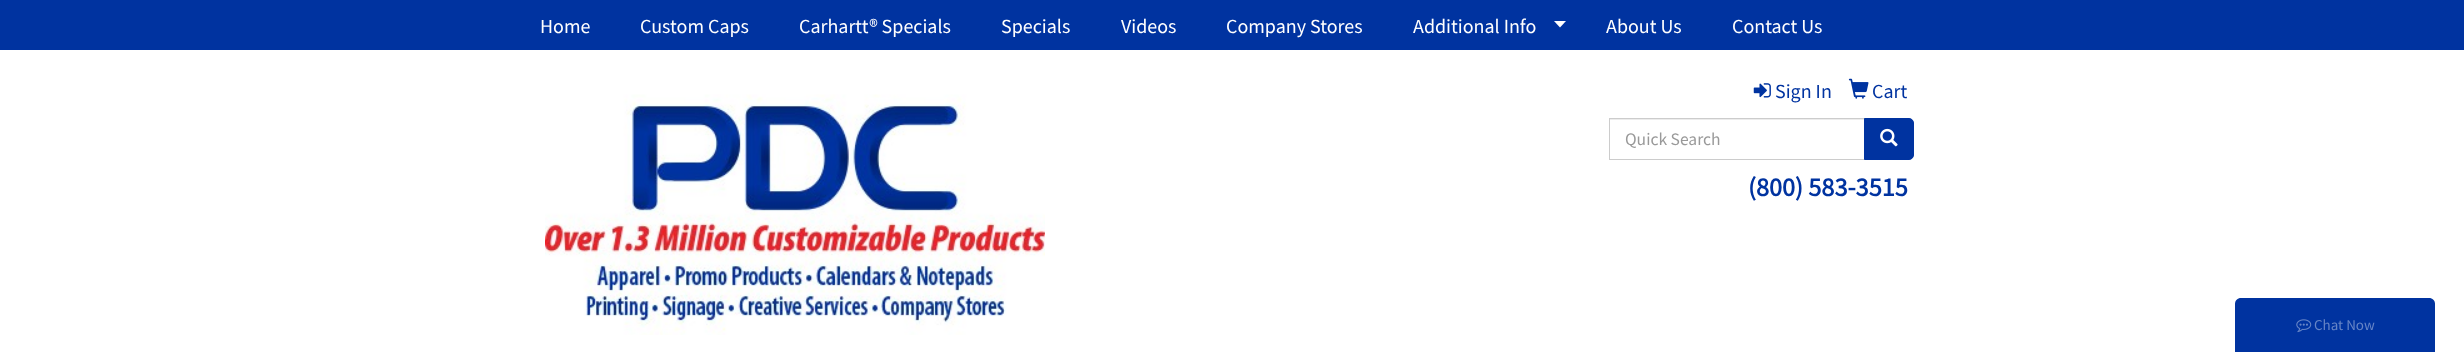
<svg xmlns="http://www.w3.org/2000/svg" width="2464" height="352">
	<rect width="100%" height="100%" fill="#0033A0" />
	<g font-family="Source Sans Pro" font-size="20" fill="#FFFFFF">
		<text x="540" y="33">Home</text>
		<text x="640" y="33">Custom Caps</text>
		<text x="799" y="33">Carhartt® Specials</text>
		<text x="1001" y="33">Specials</text>
		<text x="1121" y="33">Videos</text>
		<text x="1226" y="33">Company Stores</text>
		<text x="1413" y="33">Additional Info</text>
	</g>
	<path d="M1554 21H1566L1560 27.5Z" fill="#FFFFFF" />
	<g font-family="Source Sans Pro" font-size="20" fill="#FFFFFF">
		<text x="1606" y="33">About Us</text>
		<text x="1732" y="33">Contact Us</text>
	</g>
	<rect x="0" y="50" width="2464" height="302" fill="#FFFFFF" />
	<image x="545" y="94" width="500" height="241" href="assets/img1.png" />
	<image x="1753" y="83" width="18" height="15" href="assets/img2.png" />
	<text x="1775" y="98" font-family="Source Sans Pro" font-size="20" fill="#0033A0">Sign In</text>
	<image x="1848" y="78" width="21" height="21" href="assets/img3.png" />
	<text x="1872" y="98" font-family="Source Sans Pro" font-size="20" fill="#0033A0">Cart</text>
	<rect x="1610" y="119" width="254" height="1" fill="#ECECEC" />
	<rect x="1609.5" y="118.5" width="255" height="41" fill="none" stroke="#CCCCCC" />
	<text x="1625" y="145" font-family="Source Sans Pro" font-size="17.5" fill="#999999">Quick Search</text>
	<path d="M1864.5 118.5H1909C1911.5 118.5 1913.5 120.5 1913.5 123V155C1913.5 157.5 1911.5 159.5 1909 159.5H1864.5Z" fill="#0033A0" stroke="#0033A0" />
	<image x="1880" y="128" width="18" height="19" href="assets/img4.png" />
	<text x="1748" y="196" font-family="Source Sans Pro" font-size="26.25" font-weight="700" fill="#0033A0">(800) 583-3515</text>
	<path d="M2241 298H2429C2432.5 298 2435 300.5 2435 304V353H2235V304C2235 300.5 2237.5 298 2241 298Z" fill="#0033A0" />
	<image x="2296" y="319" width="16" height="14" href="assets/img5.png" />
	<text x="2314" y="330" font-family="Source Sans Pro" font-size="15" fill="#6685C6">Chat Now</text>
</svg>
